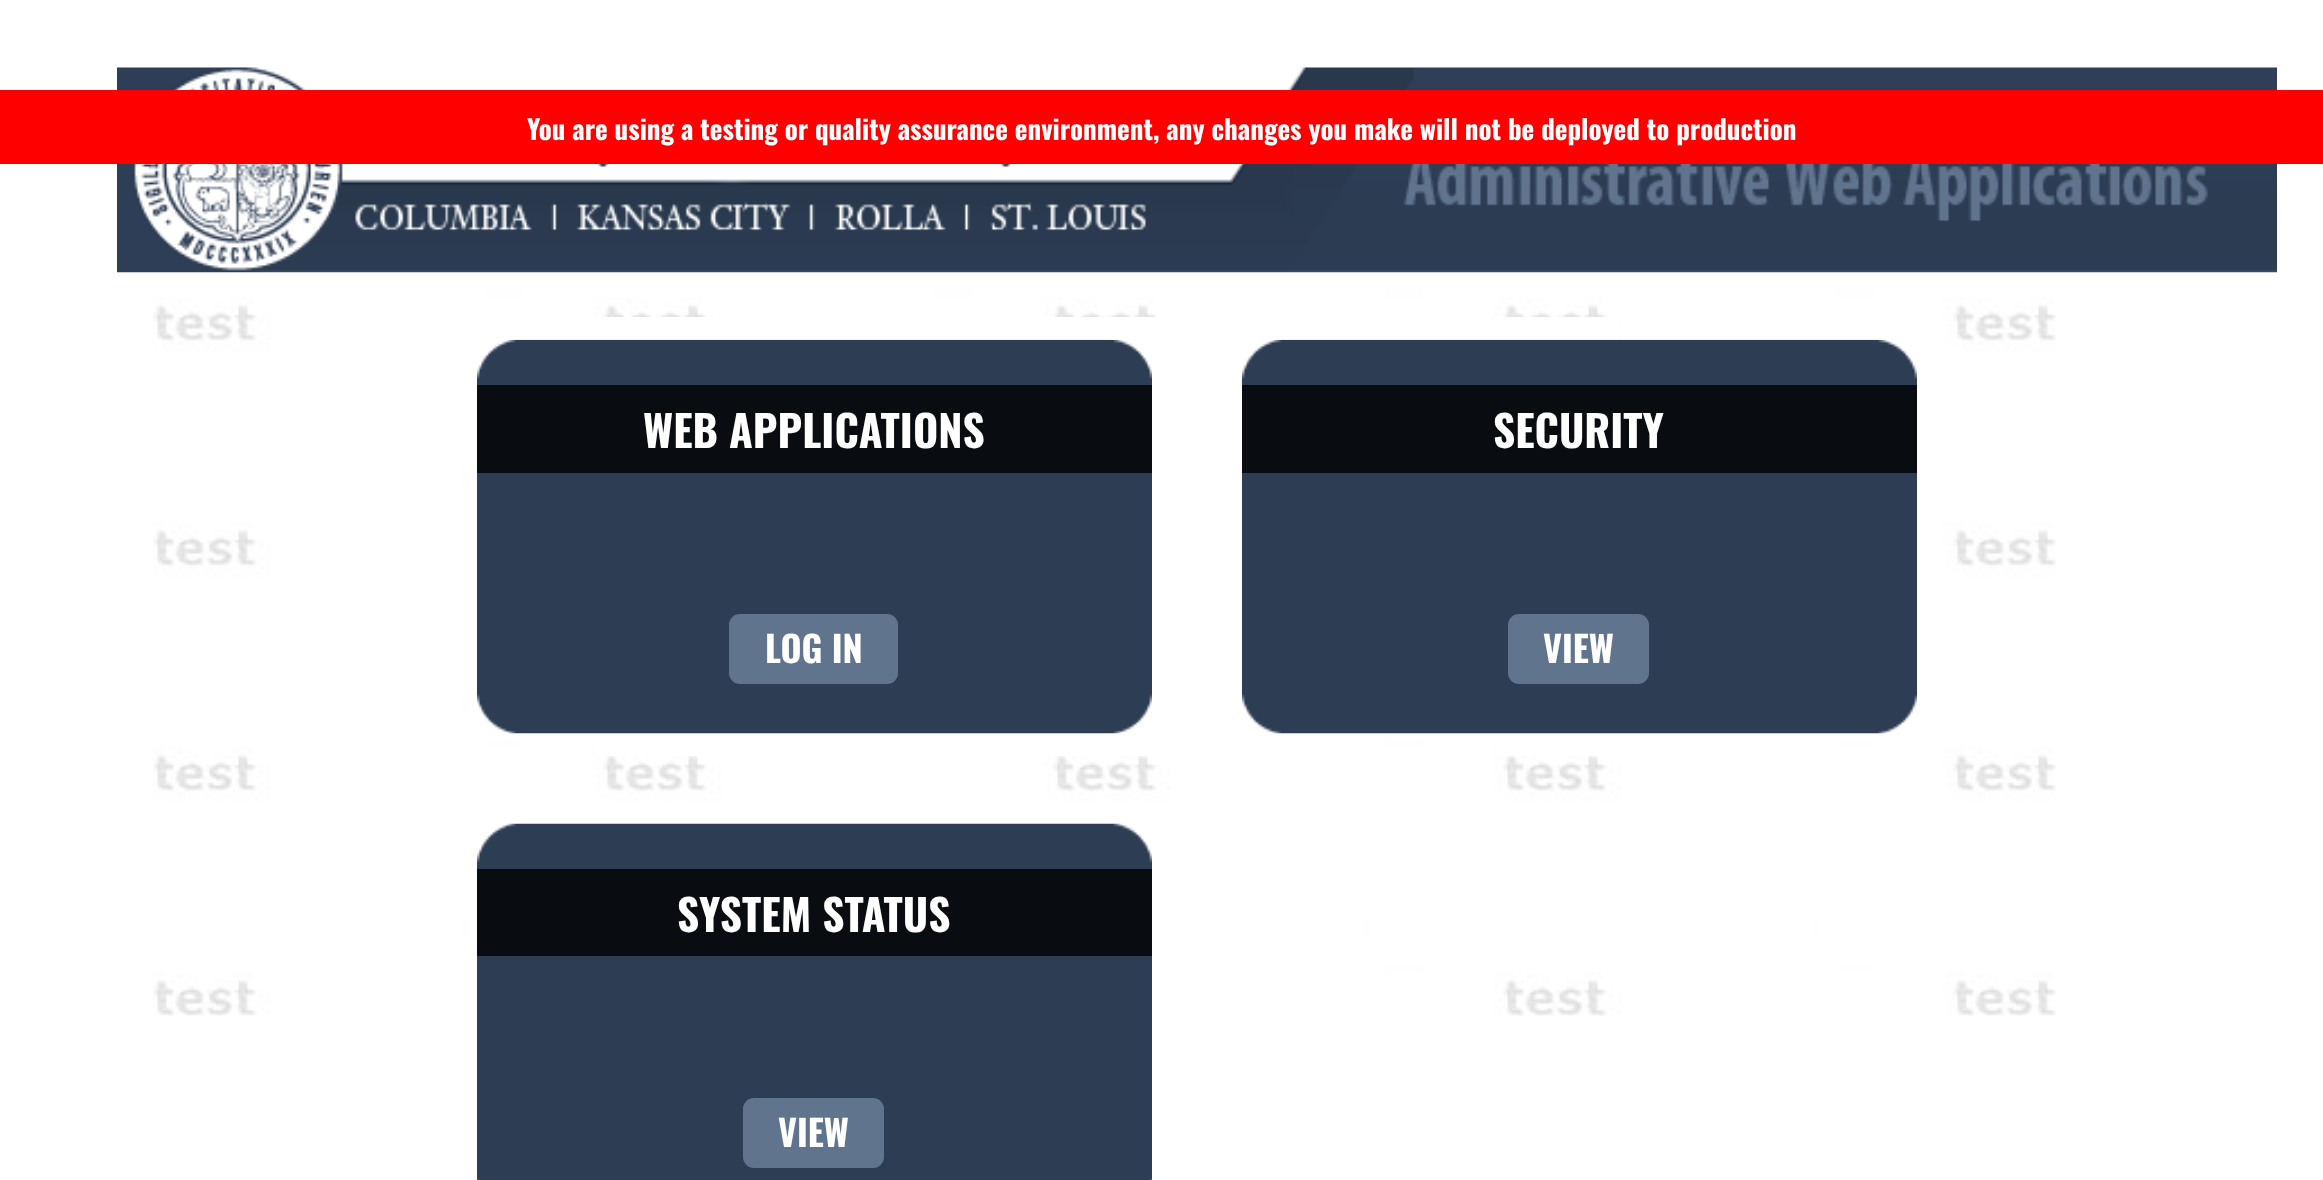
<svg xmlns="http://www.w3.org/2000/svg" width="2323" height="1180">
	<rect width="100%" height="100%" fill="#FFFFFF" />
	<image x="153" y="272" width="1903" height="744" href="assets/img1.png" />
	<image x="117" y="67" width="2160" height="206" href="assets/img2.png" />
	<rect x="0" y="90" width="2323" height="74" fill="#FF0000" />
	<text x="527" y="140" font-family="Oswald" font-size="27" font-weight="700" fill="#FFFFFF">You are using a testing or quality assurance environment, any changes you make will not be deployed to production</text>
	<rect x="595" y="317" width="575" height="439" fill="#FFFFFF" />
	<image x="477" y="339" width="675" height="395" href="assets/img3.png" />
	<rect x="477" y="385" width="675" height="88" fill="#090C11" />
	<text x="643" y="448" font-family="Oswald" font-size="43.25" font-weight="700" fill="#FFFFFF">WEB APPLICATIONS</text>
	<rect x="729" y="614" width="169" height="70" rx="11" fill="#61748E" />
	<text x="765" y="663" font-family="Oswald" font-size="36" font-weight="700" fill="#FFFFFF">LOG IN</text>
	<rect x="1495" y="317" width="125" height="439" fill="#FFFFFF" />
	<image x="1242" y="339" width="675" height="395" href="assets/img4.png" />
	<rect x="1242" y="385" width="675" height="88" fill="#090C11" />
	<text x="1493" y="448" font-family="Oswald" font-size="43.25" font-weight="700" fill="#FFFFFF">SECURITY</text>
	<rect x="1508" y="614" width="141" height="70" rx="11" fill="#61748E" />
	<text x="1543" y="663" font-family="Oswald" font-size="36" font-weight="700" fill="#FFFFFF">VIEW</text>
	<rect x="595" y="973" width="575" height="43" fill="#FFFFFF" />
	<image x="477" y="823" width="675" height="357" href="assets/img5.png" />
	<rect x="477" y="869" width="675" height="87" fill="#090C11" />
	<text x="677" y="932" font-family="Oswald" font-size="43.25" font-weight="700" fill="#FFFFFF">SYSTEM STATUS</text>
	<rect x="743" y="1098" width="141" height="70" rx="11" fill="#61748E" />
	<text x="778" y="1147" font-family="Oswald" font-size="36" font-weight="700" fill="#FFFFFF">VIEW</text>
</svg>
